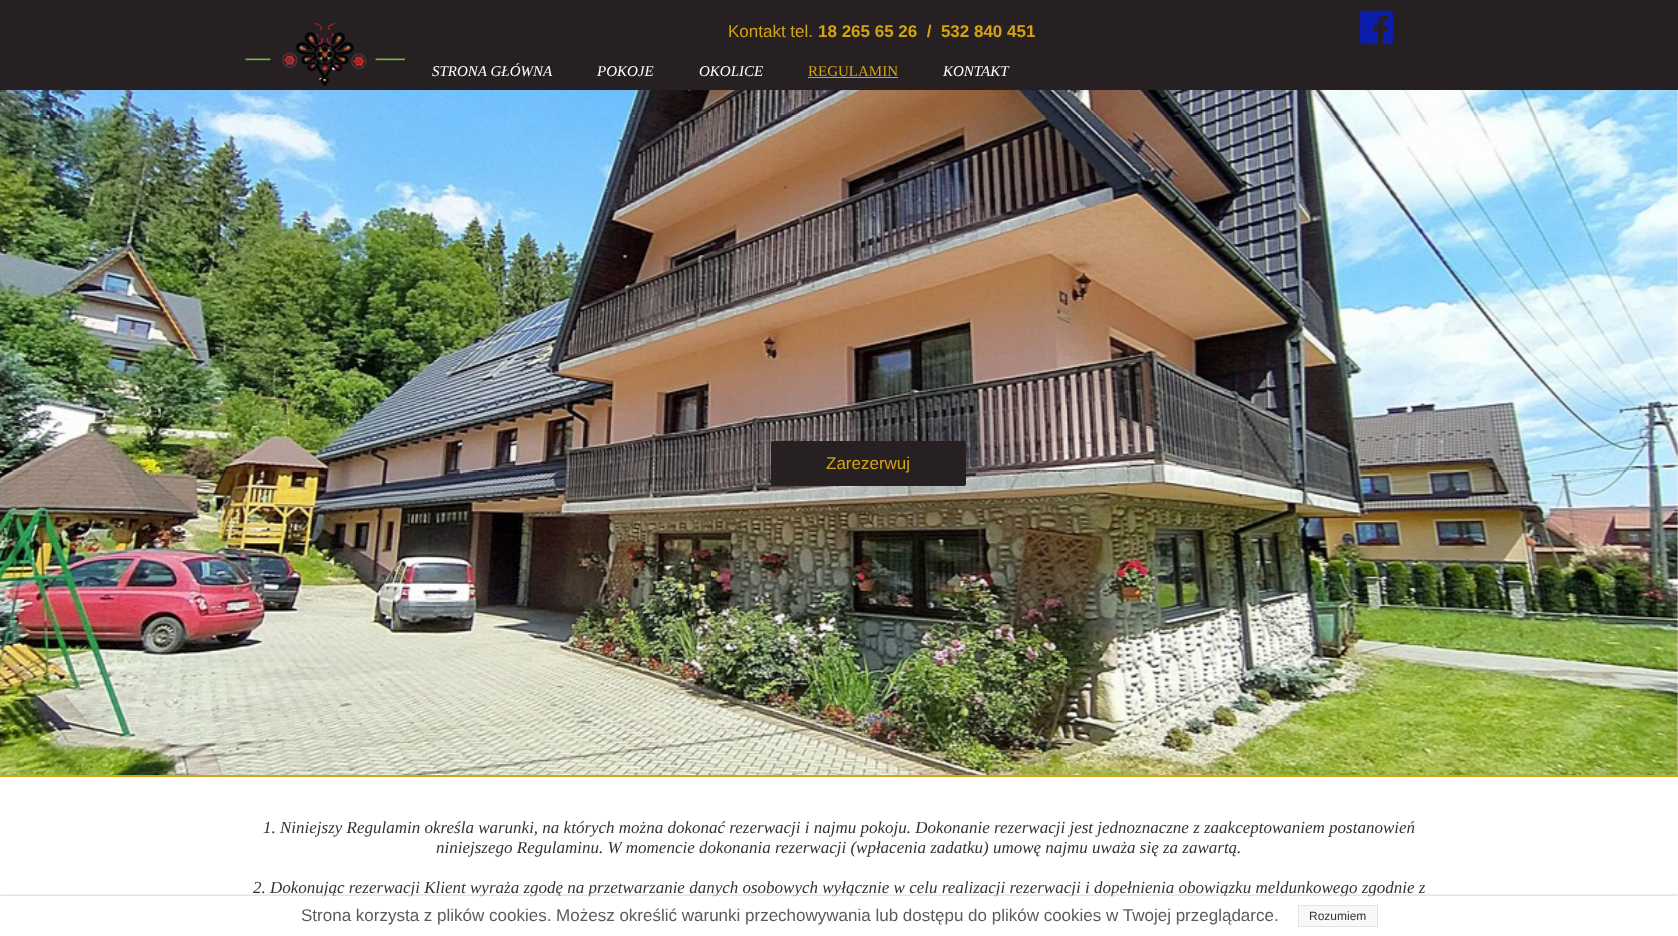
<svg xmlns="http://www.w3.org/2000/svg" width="1678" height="936">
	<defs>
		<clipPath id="clip1"><rect x="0" y="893" width="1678" height="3" /></clipPath>
	</defs>
	<rect width="100%" height="100%" fill="#FFFFFF" />
	<rect x="0" y="0" width="1678" height="90" fill="#262023" />
	<image x="245" y="22" width="161" height="65" href="assets/img1.png" />
	<text x="728" y="37" font-family="Liberation Sans" font-size="17" fill="#D4A313">Kontakt tel.</text>
	<text x="818" y="37" font-family="Liberation Sans" font-size="17" font-weight="700" fill="#D4A313" xml:space="preserve">18 265 65 26  /  532 840 451</text>
	<image x="1360" y="10" width="33" height="35" href="assets/img2.png" />
	<g font-family="Liberation Serif" font-size="15" font-style="italic" fill="#FFFFFF">
		<text x="432" y="76">STRONA GŁÓWNA</text>
		<text x="597" y="76">POKOJE</text>
		<text x="699" y="76">OKOLICE</text>
	</g>
	<text x="808" y="76" font-family="Liberation Serif" font-size="15" fill="#D4A313">REGULAMIN</text>
	<rect x="808" y="77" width="90" height="1" fill="#D4A313" />
	<text x="943" y="76" font-family="Liberation Serif" font-size="15" font-style="italic" fill="#FFFFFF">KONTAKT</text>
	<rect x="0" y="775" width="1678" height="2" fill="#D4A313" />
	<image x="0" y="90" width="1678" height="685" href="assets/img3.png" />
	<image x="795" y="773" width="8" height="2" href="assets/img4.png" />
	<image x="813" y="773" width="8" height="2" href="assets/img5.png" />
	<image x="831" y="773" width="8" height="2" href="assets/img6.png" />
	<image x="849" y="773" width="8" height="2" href="assets/img7.png" />
	<image x="867" y="773" width="8" height="2" href="assets/img8.png" />
	<rect x="771" y="441" width="195" height="45" rx="3" fill="#262023" fill-opacity="0.97" />
	<rect x="771" y="441" width="195" height="45" rx="3" fill="#262023" fill-opacity="0.97" />
	<text x="826" y="469" font-family="Liberation Sans" font-size="17" fill="#D4A313">Zarezerwuj</text>
	<g font-family="Liberation Serif" font-size="17" font-style="italic" fill="#333333">
		<text x="263" y="833">1. Niniejszy Regulamin określa warunki, na których można dokonać rezerwacji i najmu pokoju. Dokonanie rezerwacji jest jednoznaczne z zaakceptowaniem postanowień</text>
		<text x="436" y="853">niniejszego Regulaminu. W momencie dokonania rezerwacji (wpłacenia zadatku) umowę najmu uważa się za zawartą.</text>
		<text x="253" y="893">2. Dokonując rezerwacji Klient wyraża zgodę na przetwarzanie danych osobowych wyłącznie w celu realizacji rezerwacji i dopełnienia obowiązku meldunkowego zgodnie z</text>
	</g>
	<g clip-path="url(#clip1)">
		<rect x="0" y="895" width="1678" height="40" fill="#CCCCCC" fill-opacity="0.8" filter="blur(1px)" />
	</g>
	<rect x="321" y="896" width="1052" height="1" fill="#FFFFFF" fill-opacity="0.8" />
	<text x="301" y="921" font-family="Liberation Sans" font-size="17" fill="#5B5B5B">Strona korzysta z plików cookies. Możesz określić warunki przechowywania lub dostępu do plików cookies w Twojej przeglądarce.</text>
	<rect x="1298" y="905" width="80" height="22" fill="#F6F6F6" fill-opacity="0.8" />
	<rect x="1298.5" y="905.5" width="79" height="21" fill="none" stroke="#DDDDDD" stroke-opacity="0.8" />
	<text x="1309" y="920" font-family="Liberation Sans" font-size="12" fill="#333333">Rozumiem</text>
</svg>
